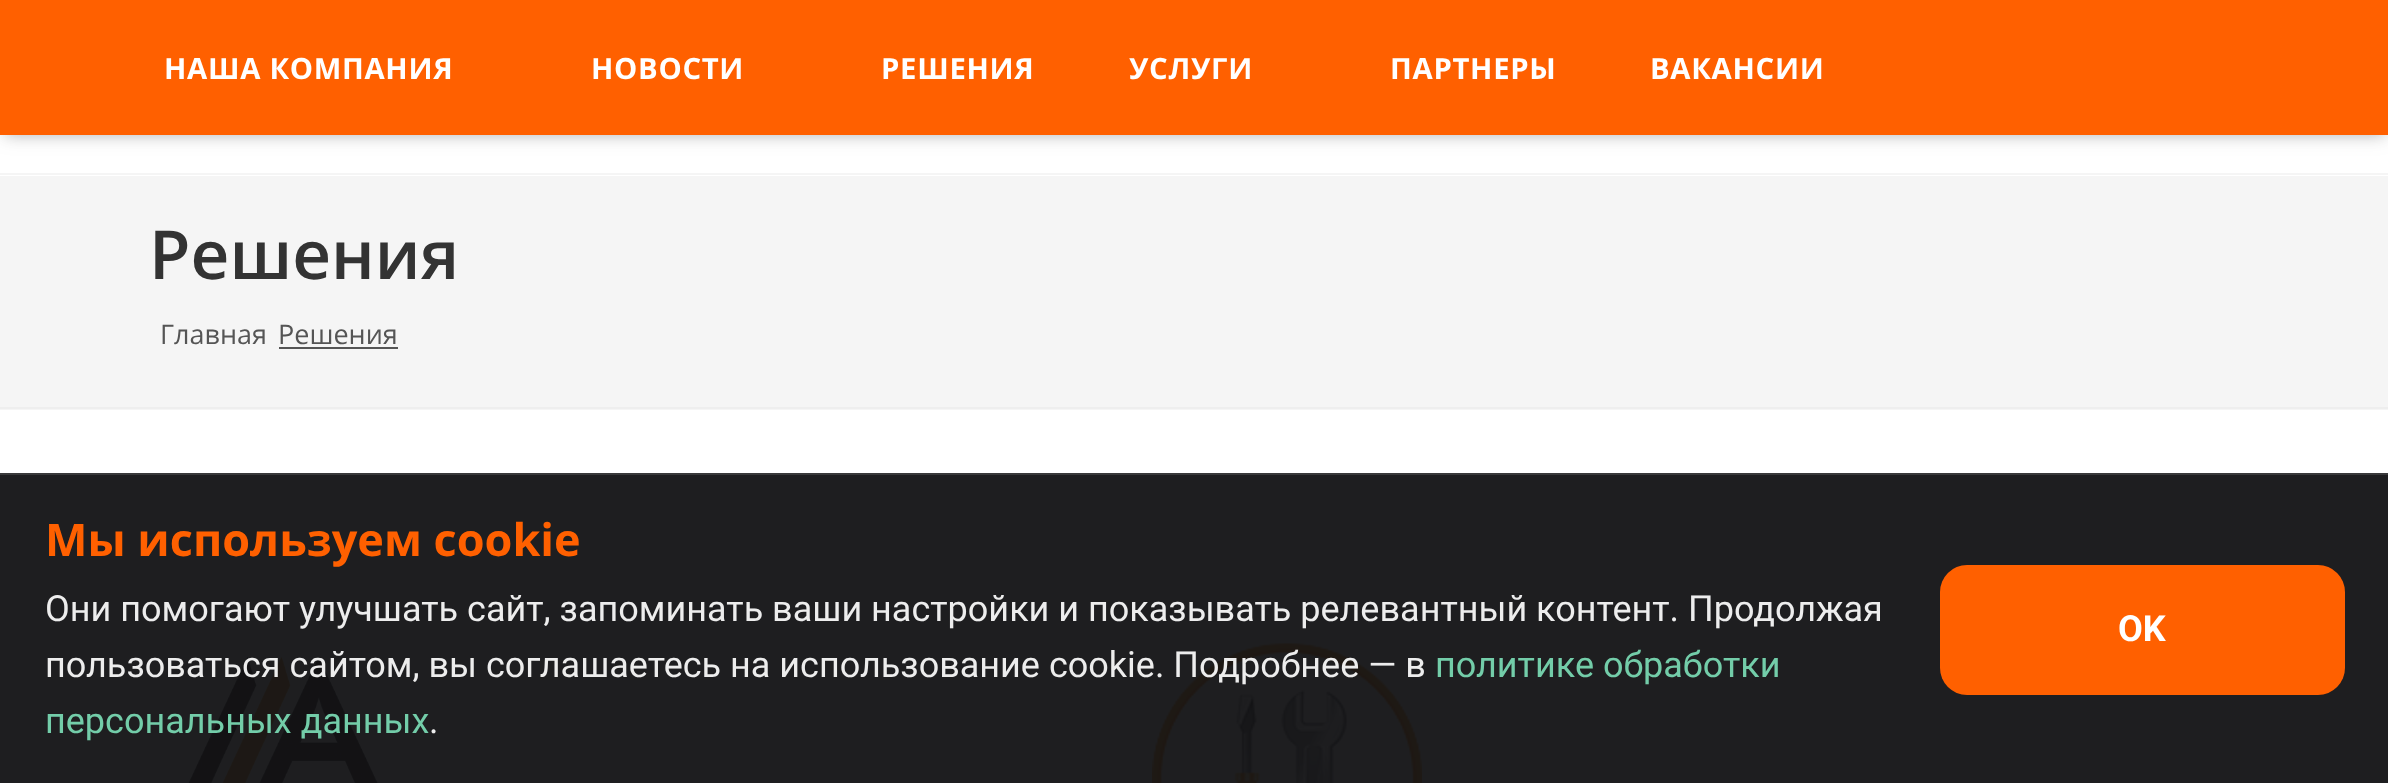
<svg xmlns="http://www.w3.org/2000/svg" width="2388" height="783">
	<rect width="100%" height="100%" fill="#FFFFFF" />
	<rect x="0" y="173" width="2388" height="2" fill="#F5F5F5" />
	<rect x="0" y="0" width="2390" height="135" fill="#000000" fill-opacity="0.1" filter="blur(11px)" />
	<rect x="7" y="14" width="2376" height="121" fill="#000000" fill-opacity="0.2" filter="blur(7px)" />
	<rect x="0" y="0" width="2388" height="135" fill="#FF6000" />
	<g font-family="Open Sans" font-size="29.25" font-weight="700" letter-spacing="0.7" fill="#FFFFFF">
		<text x="164" y="79">НАША КОМПАНИЯ</text>
		<text x="591" y="79">НОВОСТИ</text>
		<text x="881" y="79">РЕШЕНИЯ</text>
		<text x="1129" y="79">УСЛУГИ</text>
		<text x="1390" y="79">ПАРТНЕРЫ</text>
		<text x="1650" y="79">ВАКАНСИИ</text>
	</g>
	<rect x="0" y="176" width="2388" height="234" fill="#F5F5F5" />
	<rect x="0" y="407" width="2388" height="2" fill="#EEEEEE" />
	<text x="149" y="279" font-family="Open Sans" font-size="67.5" font-weight="600" fill="#333333">Решения</text>
	<g font-family="Open Sans" font-size="27" fill="#555555">
		<text x="160" y="344">Главная</text>
		<text x="278" y="344">Решения</text>
	</g>
	<rect x="279" y="347" width="119" height="2" fill="#555555" />
	<image x="188" y="656" width="190" height="127" href="assets/img1.png" />
	<image x="1152" y="643" width="270" height="140" href="assets/img2.png" />
	<rect x="0" y="473" width="2388" height="310" fill="#121214" fill-opacity="0.95" />
	<rect x="0" y="473" width="2388" height="2" fill="#FFFFFF" fill-opacity="0.12" />
	<text x="45" y="556" font-family="Open Sans" font-size="45" font-weight="700" fill="#FF6000">Мы используем cookie</text>
	<g font-family="Roboto" font-size="36" fill="#EDEDED">
		<text x="45" y="621">Они помогают улучшать сайт, запоминать ваши настройки и показывать релевантный контент. Продолжая</text>
		<text x="45" y="677">пользоваться сайтом, вы соглашаетесь на использование cookie. Подробнее — в</text>
	</g>
	<g font-family="Roboto" font-size="36" fill="#73CDA9">
		<text x="1435" y="677">политике обработки</text>
		<text x="45" y="733">персональных данных</text>
	</g>
	<text x="429" y="733" font-family="Roboto" font-size="36" fill="#EDEDED">.</text>
	<rect x="1940" y="565" width="405" height="130" rx="27" fill="#FF6000" />
	<text x="2118" y="641" font-family="Roboto" font-size="36" font-weight="700" fill="#FFFFFF">OK</text>
</svg>
